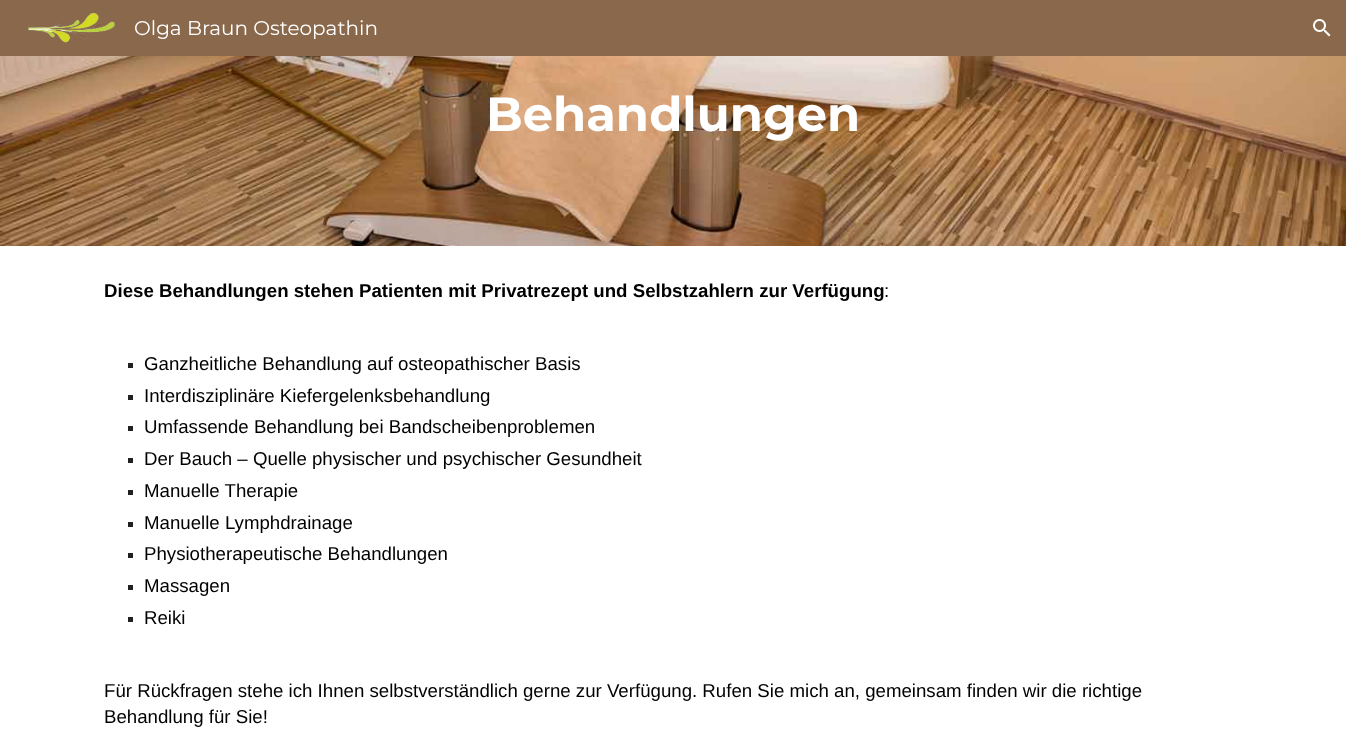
<svg xmlns="http://www.w3.org/2000/svg" width="1346" height="741">
	<rect width="100%" height="100%" fill="#FFFFFF" />
	<rect x="0" y="0" width="1346" height="56" fill="#89684C" />
	<image x="28" y="12" width="87" height="31" href="assets/img1.png" />
	<text x="134" y="35" font-family="Montserrat" font-size="20" fill="#FFFFFF">Olga Braun Osteopathin</text>
	<image x="1313" y="19" width="18" height="18" href="assets/img2.png" />
	<image x="0" y="56" width="1346" height="190" href="assets/img3.png" />
	<text x="486" y="131" font-family="Montserrat" font-size="48" font-weight="700" fill="#FFFFFF">Behandlungen</text>
	<text x="104" y="297" font-family="Liberation Sans" font-size="18.67" font-weight="700" fill="#000000">Diese Behandlungen stehen Patienten mit Privatrezept und Selbstzahlern zur Verfügung</text>
	<text x="884" y="297" font-family="Liberation Sans" font-size="18.67" fill="#000000">:</text>
	<rect x="128" y="363" width="5" height="5" fill="#212121" />
	<text x="144" y="370" font-family="Liberation Sans" font-size="18.67" fill="#000000">Ganzheitliche Behandlung auf osteopathischer Basis</text>
	<rect x="128" y="395" width="5" height="5" fill="#212121" />
	<text x="144" y="402" font-family="Liberation Sans" font-size="18.67" fill="#000000">Interdisziplinäre Kiefergelenksbehandlung</text>
	<rect x="128" y="426" width="5" height="5" fill="#212121" />
	<text x="144" y="433" font-family="Liberation Sans" font-size="18.67" fill="#000000">Umfassende Behandlung bei Bandscheibenproblemen</text>
	<rect x="128" y="458" width="5" height="5" fill="#212121" />
	<text x="144" y="465" font-family="Liberation Sans" font-size="18.67" fill="#000000">Der Bauch – Quelle physischer und psychischer Gesundheit</text>
	<rect x="128" y="490" width="5" height="5" fill="#212121" />
	<text x="144" y="497" font-family="Liberation Sans" font-size="18.67" fill="#000000">Manuelle Therapie</text>
	<rect x="128" y="522" width="5" height="5" fill="#212121" />
	<text x="144" y="529" font-family="Liberation Sans" font-size="18.67" fill="#000000">Manuelle Lymphdrainage</text>
	<rect x="128" y="553" width="5" height="5" fill="#212121" />
	<text x="144" y="560" font-family="Liberation Sans" font-size="18.67" fill="#000000">Physiotherapeutische Behandlungen</text>
	<rect x="128" y="585" width="5" height="5" fill="#212121" />
	<text x="144" y="592" font-family="Liberation Sans" font-size="18.67" fill="#000000">Massagen</text>
	<rect x="128" y="617" width="5" height="5" fill="#212121" />
	<g font-family="Liberation Sans" font-size="18.67" fill="#000000">
		<text x="144" y="624">Reiki</text>
		<text x="104" y="697">Für Rückfragen stehe ich Ihnen selbstverständlich gerne zur Verfügung. Rufen Sie mich an, gemeinsam finden wir die richtige</text>
		<text x="104" y="723">Behandlung für Sie!</text>
	</g>
</svg>
